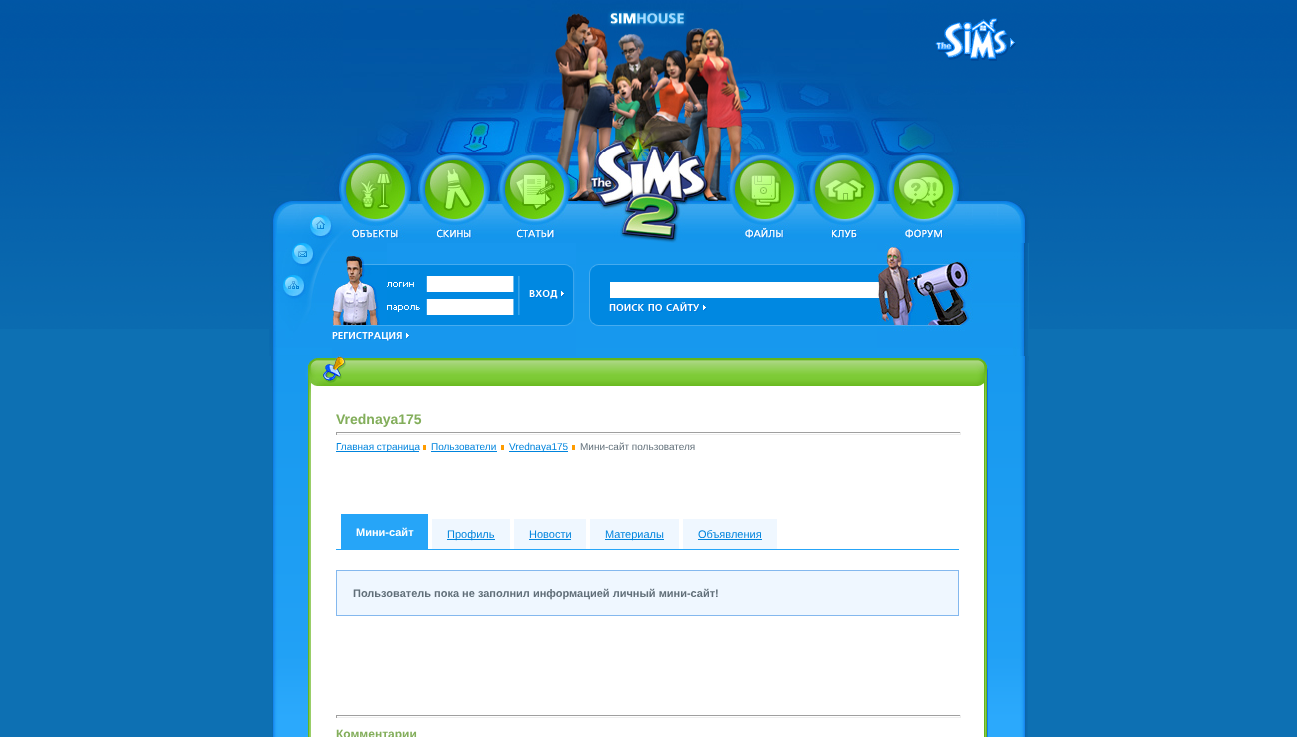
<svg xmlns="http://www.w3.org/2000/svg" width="1297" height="737">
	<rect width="100%" height="100%" fill="#0D70B3" />
	<image x="0" y="0" width="269" height="329" href="assets/img1.png" />
	<image x="1029" y="0" width="268" height="329" href="assets/img2.png" />
	<image x="269" y="0" width="74" height="152" href="assets/img3.png" />
	<image x="343" y="0" width="209" height="152" href="assets/img4.png" />
	<image x="552" y="0" width="191" height="152" href="assets/img5.png" />
	<image x="743" y="0" width="144" height="152" href="assets/img6.png" />
	<image x="887" y="0" width="142" height="85" href="assets/img7.png" />
	<image x="887" y="85" width="142" height="67" href="assets/img8.png" />
	<image x="269" y="152" width="760" height="91" href="assets/img9.png" />
	<image x="269" y="243" width="63" height="113" href="assets/img10.png" />
	<rect x="332" y="328" width="55" height="3" fill="#1797EE" />
	<image x="332" y="243" width="55" height="85" href="assets/img11.png" />
	<rect x="387" y="243" width="189" height="88" fill="#1797EE" />
	<image x="387" y="264" width="188" height="62" href="assets/img12.png" />
	<image x="529" y="290" width="36" height="10" href="assets/img13.png" />
	<rect x="332" y="331" width="244" height="25" fill="#1797EE" />
	<image x="332" y="332" width="78" height="10" href="assets/img14.png" />
	<image x="576" y="243" width="301" height="113" href="assets/img15.png" />
	<image x="877" y="243" width="151" height="113" href="assets/img16.png" />
	<image x="271" y="356" width="758" height="30" href="assets/img17.png" />
	<image x="272" y="386" width="39" height="351" href="assets/img18.png" />
	<rect x="311" y="386" width="673" height="351" fill="#FFFFFF" />
	<text x="336" y="424" font-family="Liberation Sans" font-size="14" font-weight="700" fill="#83AE5B">Vrednaya175</text>
	<rect x="336" y="432" width="625" height="1" fill="#9F9F9F" />
	<rect x="960" y="432" width="1" height="3" fill="#EEEEEE" />
	<rect x="336" y="434" width="625" height="1" fill="#EEEEEE" />
	<rect x="336" y="432" width="1" height="3" fill="#9F9F9F" />
	<rect x="336" y="451" width="83" height="1" fill="#0084DD" />
	<text x="336" y="450" font-family="Liberation Sans" font-size="10" fill="#0084DD">Главная страница</text>
	<rect x="423" y="445" width="3" height="5" fill="#FF9C00" />
	<text x="431" y="450" font-family="Liberation Sans" font-size="10" fill="#0084DD">Пользователи</text>
	<rect x="431" y="451" width="66" height="1" fill="#0084DD" />
	<rect x="501" y="445" width="3" height="5" fill="#FF9C00" />
	<rect x="509" y="451" width="59" height="1" fill="#0084DD" />
	<text x="509" y="450" font-family="Liberation Sans" font-size="10" fill="#0084DD">Vrednaya175</text>
	<rect x="572" y="445" width="3" height="5" fill="#FF9C00" />
	<text x="580" y="450" font-family="Liberation Sans" font-size="10" fill="#616F79">Мини-сайт пользователя</text>
	<rect x="341" y="514" width="87" height="35" fill="#26A5F8" />
	<text x="356" y="536" font-family="Liberation Sans" font-size="11" font-weight="700" fill="#FFFFFF">Мини-сайт</text>
	<rect x="432" y="519" width="78" height="30" fill="#EFF7FF" />
	<rect x="447" y="539" width="48" height="1" fill="#0084DD" />
	<text x="447" y="538" font-family="Liberation Sans" font-size="11" fill="#0084DD">Профиль</text>
	<rect x="514" y="519" width="72" height="30" fill="#EFF7FF" />
	<text x="529" y="538" font-family="Liberation Sans" font-size="11" fill="#0084DD">Новости</text>
	<rect x="529" y="539" width="42" height="1" fill="#0084DD" />
	<rect x="590" y="519" width="89" height="30" fill="#EFF7FF" />
	<rect x="605" y="539" width="59" height="1" fill="#0084DD" />
	<text x="605" y="538" font-family="Liberation Sans" font-size="11" fill="#0084DD">Материалы</text>
	<rect x="683" y="519" width="94" height="30" fill="#EFF7FF" />
	<text x="698" y="538" font-family="Liberation Sans" font-size="11" fill="#0084DD">Объявления</text>
	<rect x="698" y="539" width="64" height="1" fill="#0084DD" />
	<rect x="336" y="549" width="623" height="1" fill="#26A5F8" />
	<rect x="336.5" y="570.5" width="622" height="45" fill="#EFF7FF" stroke="#84B8EE" />
	<text x="353" y="597" font-family="Liberation Sans" font-size="11" font-weight="700" fill="#616F79">Пользователь пока не заполнил информацией личный мини-сайт!</text>
	<rect x="336" y="715" width="625" height="1" fill="#9F9F9F" />
	<rect x="960" y="715" width="1" height="3" fill="#EEEEEE" />
	<rect x="336" y="717" width="625" height="1" fill="#EEEEEE" />
	<rect x="336" y="715" width="1" height="3" fill="#9F9F9F" />
	<text x="336" y="738" font-family="Liberation Sans" font-size="12" font-weight="700" fill="#83AE5B">Комментарии</text>
	<image x="984" y="386" width="1" height="351" href="assets/img19.png" />
	<image x="985" y="386" width="43" height="351" href="assets/img20.png" />
</svg>
